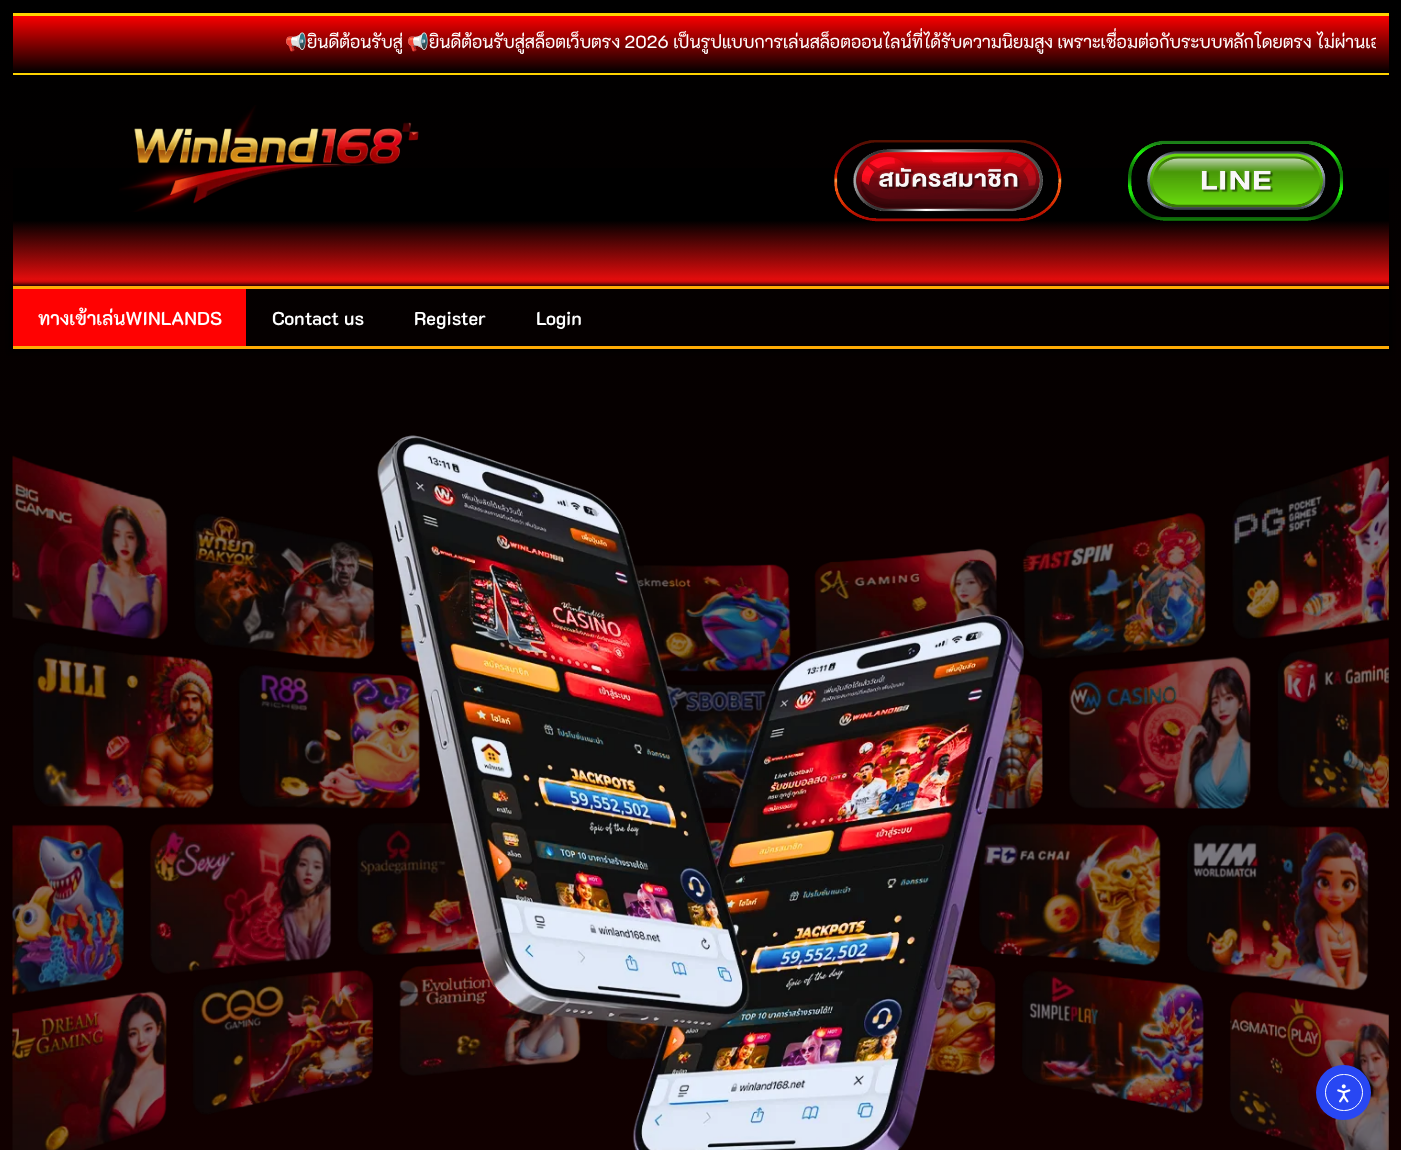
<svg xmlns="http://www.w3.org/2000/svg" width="1401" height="1150">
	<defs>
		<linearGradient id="g1" gradientUnits="userSpaceOnUse" x1="701" y1="0" x2="701" y2="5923"><stop offset="0" stop-color="#000000" /><stop offset="1" stop-color="#580000" /></linearGradient>
		<linearGradient id="g2" gradientUnits="userSpaceOnUse" x1="701" y1="15" x2="701" y2="73"><stop offset="0" stop-color="#FF0000" /><stop offset="1" stop-color="#000000" /></linearGradient>
		<clipPath id="clip1"><rect x="25" y="28" width="1351" height="26" /></clipPath>
		<linearGradient id="g3" gradientUnits="userSpaceOnUse" x1="701" y1="75" x2="701" y2="286"><stop offset="0.69" stop-color="#000000" /><stop offset="1" stop-color="#FC0E0E" /></linearGradient>
		<clipPath id="clip2"><path d="M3 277H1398V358H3ZM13 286H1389V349H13Z" clip-rule="evenodd" /></clipPath>
	</defs>
	<rect width="100%" height="100%" fill="#FFFFFF" />
	<rect x="0" y="0" width="1401" height="1150" fill="url(#g1)" />
	<rect x="13" y="16" width="1376" height="56" fill="url(#g2)" />
	<rect x="13" y="13" width="1376" height="3" fill="#FFD200" />
	<rect x="13" y="73" width="1376" height="2" fill="#FFD200" />
	<text x="285" y="48" font-family="Noto Color Emoji" font-size="17.5" fill="#FFFFFF">📢</text>
	<text x="307" y="48" font-family="'K2D'" font-size="17.5" fill="#FFFFFF">ยินดีต้อนรับสู่</text>
	<text x="407" y="48" font-family="Noto Color Emoji" font-size="17.5" fill="#FFFFFF">📢</text>
	<g clip-path="url(#clip1)">
		<text x="429" y="48" font-family="'K2D'" font-size="17.5" fill="#FFFFFF">ยินดีต้อนรับสู่สล็อตเว็บตรง 2026 เป็นรูปแบบการเล่นสล็อตออนไลน์ที่ได้รับความนิยมสูง เพราะเชื่อมต่อกับระบบหลักโดยตรง ไม่ผ่านเอ</text>
	</g>
	<rect x="13" y="168" width="1376" height="118" fill="url(#g3)" />
	<image x="119" y="105" width="300" height="107" href="assets/img1.png" />
	<image x="834" y="140" width="228" height="82" href="assets/img2.png" />
	<image x="1128" y="140" width="216" height="81" href="assets/img3.png" />
	<g clip-path="url(#clip2)">
		<rect x="10" y="284" width="1381" height="67" fill="#000000" filter="blur(2px)" />
	</g>
	<rect x="13" y="286" width="1376" height="3" fill="#FFAB04" />
	<rect x="13" y="346" width="1376" height="3" fill="#FFAB04" />
	<rect x="13" y="289" width="233" height="57" fill="#FF0202" />
	<g font-family="'K2D'" font-size="18.75" font-weight="600" fill="#FFFFFF">
		<text x="38" y="325">ทางเข้าเล่นWINLANDS</text>
		<text x="272" y="325">Contact us</text>
		<text x="414" y="325">Register</text>
		<text x="536" y="325">Login</text>
	</g>
	<image x="12" y="435" width="1377" height="715" href="assets/img4.png" />
	<circle cx="1343.5" cy="1092.5" r="27.5" fill="#2847F3" />
	<rect x="1325.5" y="1074.5" width="37" height="36" rx="18" fill="none" stroke="#FFFFFF" />
	<image x="1337" y="1084" width="14" height="19" href="assets/img5.png" />
</svg>
